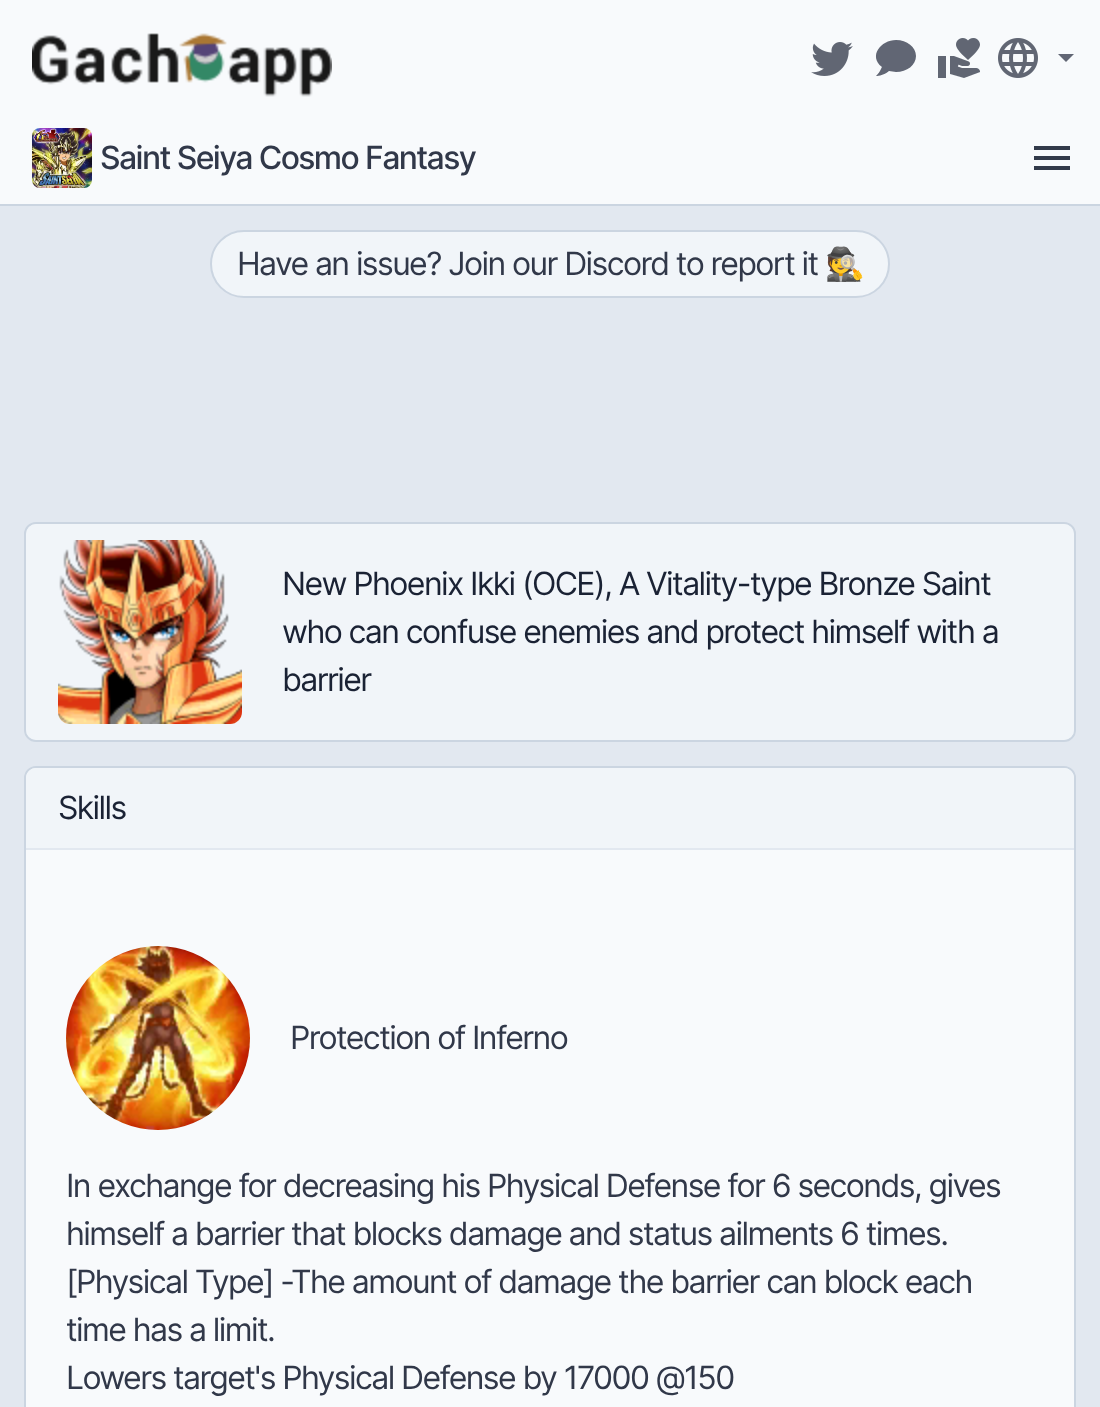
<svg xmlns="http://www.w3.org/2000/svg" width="1100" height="1407">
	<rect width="100%" height="100%" fill="#E2E8F0" />
	<rect x="0" y="0" width="1100" height="204" fill="#F8FAFC" />
	<rect x="0" y="204" width="1100" height="2" fill="#CBD5E1" />
	<image x="32" y="33" width="300" height="64" href="assets/img1.png" />
	<image x="811" y="42" width="42" height="34" href="assets/img2.png" />
	<path d="M896 40C907 40 916 47 916 56C916 65 907 72 896 72L889 71C883 76 876 76 876 76C881 71 881 68 882 67C868 56 881 40 896 40Z" fill="#616674" />
	<image x="938" y="38" width="42" height="40" href="assets/img3.png" />
	<image x="998" y="38" width="40" height="40" href="assets/img4.png" />
	<path d="M1058 54H1074L1066 62Z" fill="#616674" />
	<image x="32" y="128" width="60" height="60" href="assets/img5.png" />
	<text x="100" y="169" font-family="Inter" font-size="32" font-weight="500" letter-spacing="-1.6" fill="#313849">Saint Seiya Cosmo Fantasy</text>
	<image x="1034" y="146" width="36" height="24" href="assets/img6.png" />
	<rect x="211" y="231" width="678" height="66" rx="33" fill="#F1F5F9" stroke="#CBD5E1" stroke-width="2" />
	<text x="237" y="275" font-family="Inter" font-size="32" letter-spacing="-1.6" fill="#313849">Have an issue? Join our Discord to report it</text>
	<text x="825" y="275" font-family="Noto Color Emoji" font-size="32" letter-spacing="-1.6" fill="#313849">🕵</text>
	<rect x="25" y="523" width="1050" height="218" rx="11" fill="none" stroke="#CBD5E1" stroke-width="2" />
	<rect x="26" y="524" width="1048" height="216" rx="10" fill="#F1F5F9" />
	<image x="58" y="540" width="184" height="184" href="assets/img7.png" />
	<g font-family="Inter" font-size="32" letter-spacing="-1.6" fill="#1A2234">
		<text x="282" y="595">New Phoenix Ikki (OCE), A Vitality-type Bronze Saint</text>
		<text x="282" y="643">who can confuse enemies and protect himself with a</text>
		<text x="282" y="691">barrier</text>
	</g>
	<rect x="25" y="767" width="1050" height="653" rx="11" fill="#F8FAFC" stroke="#CBD5E1" stroke-width="2" />
	<path d="M36 768H1064C1069.5 768 1074 772.5 1074 778V850H26V778C26 772.5 30.5 768 36 768Z" fill="#F1F5F9" />
	<rect x="26" y="848" width="1048" height="2" fill="#E2E8F0" />
	<text x="58" y="819" font-family="Inter" font-size="32" letter-spacing="-1.6" fill="#1A2234">Skills</text>
	<image x="66" y="946" width="184" height="184" href="assets/img8.png" />
	<g font-family="Inter" font-size="32" letter-spacing="-1.6" fill="#313849">
		<text x="290" y="1049">Protection of Inferno</text>
		<text x="66" y="1197">In exchange for decreasing his Physical Defense for 6 seconds, gives</text>
		<text x="66" y="1245">himself a barrier that blocks damage and status ailments 6 times.</text>
		<text x="66" y="1293">[Physical Type] -The amount of damage the barrier can block each</text>
		<text x="66" y="1341">time has a limit.</text>
		<text x="66" y="1389">Lowers target's Physical Defense by 17000 @150</text>
	</g>
</svg>
